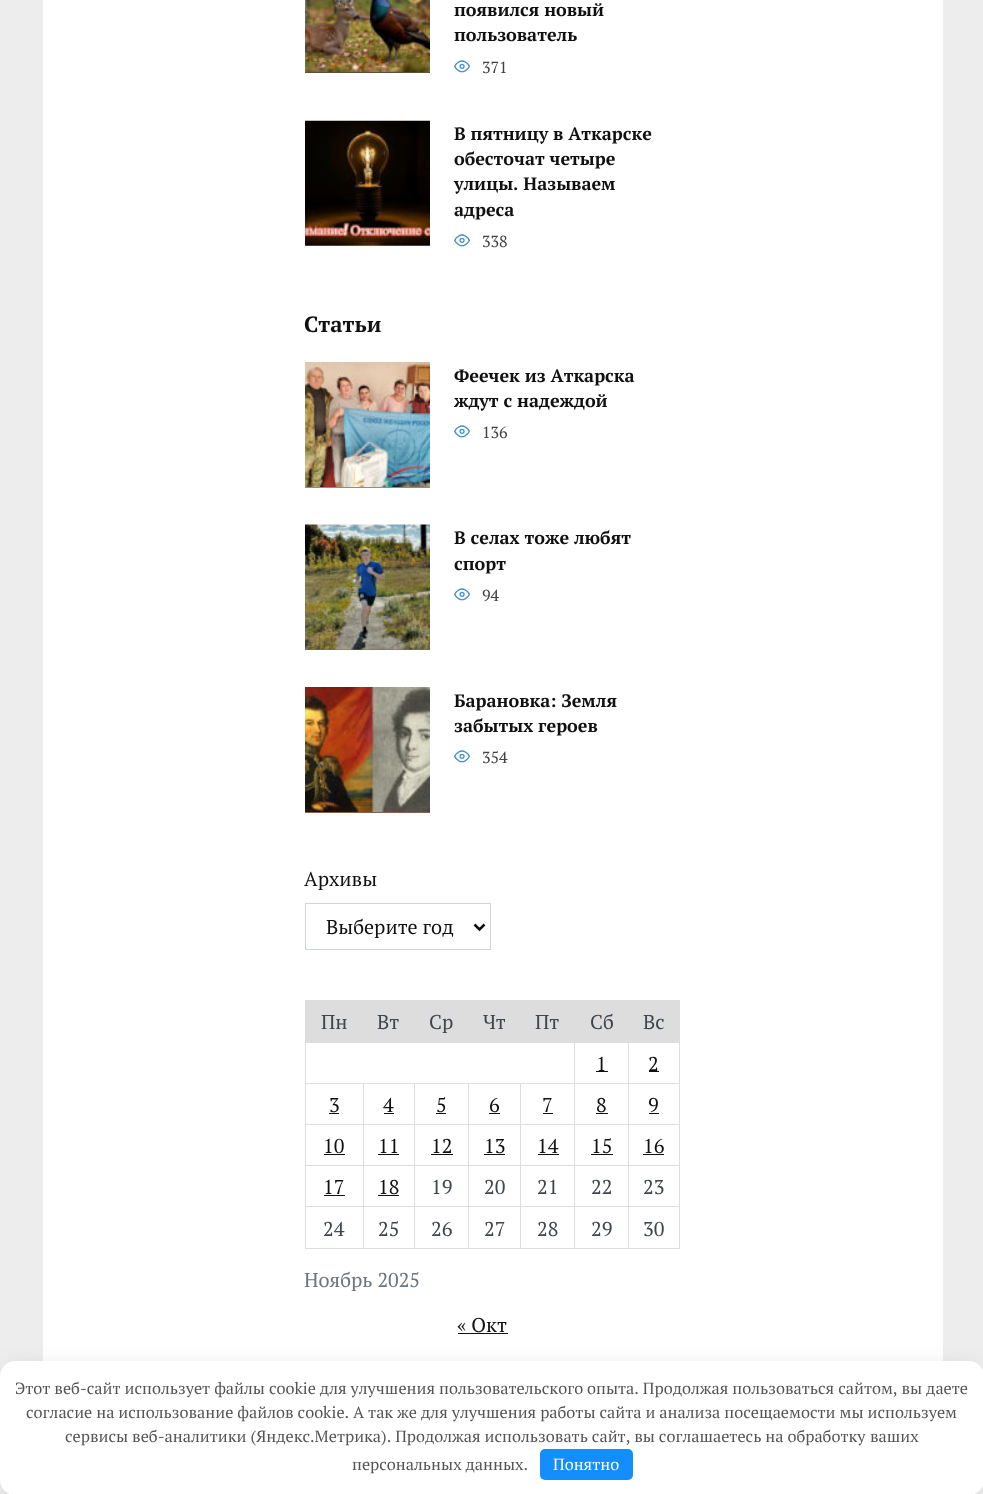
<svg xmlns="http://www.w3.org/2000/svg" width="983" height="1494">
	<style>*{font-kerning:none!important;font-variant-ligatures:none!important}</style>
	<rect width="100%" height="100%" fill="#EDEDED" />
	<rect x="43" y="0" width="900" height="1361" fill="#FFFFFF" />
	<image x="305" y="0" width="125" height="72" href="assets/img1.png" />
	<rect x="305" y="72" width="125" height="1" fill="#5E5134" />
	<g font-family="PT Serif" font-size="18" font-weight="700" fill="#111111">
		<text x="454" y="16">появился новый</text>
		<text x="454" y="41">пользователь</text>
	</g>
	<text x="454" y="73" font-family="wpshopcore" font-size="16" fill="#4692CC">👀</text>
	<text x="482" y="73" font-family="PT Serif" font-size="16" fill="#414141">371</text>
	<image x="305" y="120" width="125" height="126" href="assets/img2.png" />
	<g font-family="PT Serif" font-size="18" font-weight="700" fill="#111111">
		<text x="454" y="140">В пятницу в Аткарске</text>
		<text x="454" y="165">обесточат четыре</text>
		<text x="454" y="190">улицы. Называем</text>
		<text x="454" y="216">адреса</text>
	</g>
	<text x="454" y="247" font-family="wpshopcore" font-size="16" fill="#4692CC">👀</text>
	<text x="482" y="247" font-family="PT Serif" font-size="16" fill="#414141">338</text>
	<text x="304" y="332" font-family="PT Serif" font-size="22" font-weight="700" fill="#111111">Статьи</text>
	<image x="305" y="362" width="125" height="125" href="assets/img3.png" />
	<rect x="305" y="487" width="125" height="1" fill="#958B7E" />
	<g font-family="PT Serif" font-size="18" font-weight="700" fill="#111111">
		<text x="454" y="382">Феечек из Аткарска</text>
		<text x="454" y="407">ждут с надеждой</text>
	</g>
	<text x="454" y="438" font-family="wpshopcore" font-size="16" fill="#4692CC">👀</text>
	<text x="482" y="438" font-family="PT Serif" font-size="16" fill="#414141">136</text>
	<rect x="305" y="649" width="125" height="1" fill="#736F4F" />
	<image x="305" y="524" width="125" height="126" href="assets/img4.png" />
	<g font-family="PT Serif" font-size="18" font-weight="700" fill="#111111">
		<text x="454" y="544">В селах тоже любят</text>
		<text x="454" y="570">спорт</text>
	</g>
	<text x="454" y="601" font-family="wpshopcore" font-size="16" fill="#4692CC">👀</text>
	<text x="482" y="601" font-family="PT Serif" font-size="16" fill="#414141">94</text>
	<image x="305" y="687" width="125" height="125" href="assets/img5.png" />
	<rect x="305" y="812" width="125" height="1" fill="#82624B" />
	<g font-family="PT Serif" font-size="18" font-weight="700" fill="#111111">
		<text x="454" y="707">Барановка: Земля</text>
		<text x="454" y="732">забытых героев</text>
	</g>
	<text x="454" y="763" font-family="wpshopcore" font-size="16" fill="#4692CC">👀</text>
	<text x="482" y="763" font-family="PT Serif" font-size="16" fill="#414141">354</text>
	<text x="304" y="886" font-family="PT Serif" font-size="20" fill="#111111">Архивы</text>
	<rect x="305.5" y="903.5" width="185" height="46" fill="none" stroke="#CED4DA" />
	<path d="M474.5 924.5L479.5 929.5L484.5 924.5" fill="none" stroke="#111111" stroke-width="2.5" />
	<text x="326" y="934" font-family="PT Serif" font-size="20" fill="#111111">Выберите год</text>
	<rect x="305" y="1001" width="374" height="42" fill="#DDDDDD" />
	<g font-family="PT Serif" font-size="20" fill="#40464D">
		<text x="321" y="1029">Пн</text>
		<text x="377" y="1029">Вт</text>
		<text x="429" y="1029">Ср</text>
		<text x="483" y="1029">Чт</text>
		<text x="535" y="1029">Пт</text>
		<text x="590" y="1029">Сб</text>
	</g>
	<rect x="305" y="1000" width="375" height="1" fill="#DDDDDD" />
	<rect x="628" y="1083" width="52" height="1" fill="#DDDDDD" />
	<rect x="628" y="1124" width="52" height="1" fill="#DDDDDD" />
	<rect x="628" y="1165" width="52" height="1" fill="#DDDDDD" />
	<rect x="628" y="1206" width="52" height="1" fill="#DDDDDD" />
	<rect x="679" y="1206" width="1" height="43" fill="#DDDDDD" />
	<rect x="679" y="1165" width="1" height="43" fill="#DDDDDD" />
	<rect x="679" y="1124" width="1" height="42" fill="#DDDDDD" />
	<rect x="679" y="1083" width="1" height="42" fill="#DDDDDD" />
	<rect x="679" y="1041" width="1" height="43" fill="#DDDDDD" />
	<rect x="679" y="1000" width="1" height="43" fill="#DDDDDD" />
	<text x="643" y="1029" font-family="PT Serif" font-size="20" fill="#40464D">Вс</text>
	<rect x="628" y="1248" width="52" height="1" fill="#DDDDDD" />
	<rect x="628" y="1206" width="1" height="43" fill="#DDDDDD" />
	<rect x="574" y="1206" width="55" height="1" fill="#DDDDDD" />
	<rect x="628" y="1165" width="1" height="43" fill="#DDDDDD" />
	<rect x="574" y="1165" width="55" height="1" fill="#DDDDDD" />
	<rect x="628" y="1124" width="1" height="42" fill="#DDDDDD" />
	<rect x="574" y="1124" width="55" height="1" fill="#DDDDDD" />
	<rect x="628" y="1083" width="1" height="42" fill="#DDDDDD" />
	<rect x="574" y="1083" width="55" height="1" fill="#DDDDDD" />
	<rect x="574" y="1248" width="55" height="1" fill="#DDDDDD" />
	<rect x="574" y="1206" width="1" height="43" fill="#DDDDDD" />
	<rect x="520" y="1206" width="55" height="1" fill="#DDDDDD" />
	<rect x="574" y="1165" width="1" height="43" fill="#DDDDDD" />
	<rect x="520" y="1165" width="55" height="1" fill="#DDDDDD" />
	<rect x="574" y="1124" width="1" height="42" fill="#DDDDDD" />
	<rect x="520" y="1124" width="55" height="1" fill="#DDDDDD" />
	<rect x="574" y="1083" width="1" height="42" fill="#DDDDDD" />
	<rect x="520" y="1083" width="55" height="1" fill="#DDDDDD" />
	<rect x="574" y="1041" width="1" height="43" fill="#DDDDDD" />
	<text x="596" y="1071" font-family="PT Serif" font-size="20" fill="#111111">1</text>
	<rect x="596" y="1071" width="12" height="1" fill="#111111" />
	<rect x="628" y="1041" width="1" height="43" fill="#DDDDDD" />
	<text x="648" y="1071" font-family="PT Serif" font-size="20" fill="#111111">2</text>
	<rect x="649" y="1071" width="10" height="1" fill="#111111" />
	<rect x="520" y="1248" width="55" height="1" fill="#DDDDDD" />
	<rect x="520" y="1206" width="1" height="43" fill="#DDDDDD" />
	<rect x="468" y="1206" width="53" height="1" fill="#DDDDDD" />
	<rect x="520" y="1165" width="1" height="43" fill="#DDDDDD" />
	<rect x="468" y="1165" width="53" height="1" fill="#DDDDDD" />
	<rect x="520" y="1124" width="1" height="42" fill="#DDDDDD" />
	<rect x="468" y="1124" width="53" height="1" fill="#DDDDDD" />
	<rect x="520" y="1083" width="1" height="42" fill="#DDDDDD" />
	<rect x="468" y="1083" width="53" height="1" fill="#DDDDDD" />
	<rect x="468" y="1248" width="53" height="1" fill="#DDDDDD" />
	<rect x="468" y="1206" width="1" height="43" fill="#DDDDDD" />
	<rect x="414" y="1206" width="55" height="1" fill="#DDDDDD" />
	<rect x="468" y="1165" width="1" height="43" fill="#DDDDDD" />
	<rect x="414" y="1165" width="55" height="1" fill="#DDDDDD" />
	<rect x="468" y="1124" width="1" height="42" fill="#DDDDDD" />
	<rect x="414" y="1124" width="55" height="1" fill="#DDDDDD" />
	<rect x="468" y="1083" width="1" height="42" fill="#DDDDDD" />
	<rect x="414" y="1083" width="55" height="1" fill="#DDDDDD" />
	<rect x="414" y="1248" width="55" height="1" fill="#DDDDDD" />
	<rect x="414" y="1206" width="1" height="43" fill="#DDDDDD" />
	<rect x="363" y="1206" width="52" height="1" fill="#DDDDDD" />
	<rect x="414" y="1165" width="1" height="43" fill="#DDDDDD" />
	<rect x="363" y="1165" width="52" height="1" fill="#DDDDDD" />
	<rect x="414" y="1124" width="1" height="42" fill="#DDDDDD" />
	<rect x="363" y="1124" width="52" height="1" fill="#DDDDDD" />
	<rect x="414" y="1083" width="1" height="42" fill="#DDDDDD" />
	<rect x="363" y="1083" width="52" height="1" fill="#DDDDDD" />
	<rect x="363" y="1248" width="52" height="1" fill="#DDDDDD" />
	<rect x="363" y="1206" width="1" height="43" fill="#DDDDDD" />
	<rect x="305" y="1206" width="59" height="1" fill="#DDDDDD" />
	<rect x="363" y="1165" width="1" height="43" fill="#DDDDDD" />
	<rect x="305" y="1165" width="59" height="1" fill="#DDDDDD" />
	<rect x="363" y="1124" width="1" height="42" fill="#DDDDDD" />
	<rect x="305" y="1124" width="59" height="1" fill="#DDDDDD" />
	<rect x="363" y="1083" width="1" height="42" fill="#DDDDDD" />
	<rect x="305" y="1083" width="59" height="1" fill="#DDDDDD" />
	<rect x="305" y="1248" width="59" height="1" fill="#DDDDDD" />
	<rect x="305" y="1206" width="1" height="43" fill="#DDDDDD" />
	<rect x="305" y="1165" width="1" height="43" fill="#DDDDDD" />
	<rect x="305" y="1124" width="1" height="42" fill="#DDDDDD" />
	<rect x="305" y="1041" width="1" height="84" fill="#DDDDDD" />
	<text x="329" y="1112" font-family="PT Serif" font-size="20" fill="#111111">3</text>
	<rect x="329" y="1113" width="10" height="1" fill="#111111" />
	<text x="383" y="1112" font-family="PT Serif" font-size="20" fill="#111111">4</text>
	<rect x="384" y="1113" width="10" height="1" fill="#111111" />
	<text x="436" y="1112" font-family="PT Serif" font-size="20" fill="#111111">5</text>
	<rect x="436" y="1113" width="10" height="1" fill="#111111" />
	<text x="489" y="1112" font-family="PT Serif" font-size="20" fill="#111111">6</text>
	<rect x="489" y="1113" width="11" height="1" fill="#111111" />
	<text x="542" y="1112" font-family="PT Serif" font-size="20" fill="#111111">7</text>
	<rect x="543" y="1113" width="10" height="1" fill="#111111" />
	<text x="596" y="1112" font-family="PT Serif" font-size="20" fill="#111111">8</text>
	<rect x="596" y="1113" width="12" height="1" fill="#111111" />
	<text x="648" y="1112" font-family="PT Serif" font-size="20" fill="#111111">9</text>
	<rect x="649" y="1113" width="10" height="1" fill="#111111" />
	<text x="323" y="1153" font-family="PT Serif" font-size="20" fill="#111111">10</text>
	<rect x="324" y="1154" width="21" height="1" fill="#111111" />
	<text x="378" y="1153" font-family="PT Serif" font-size="20" fill="#111111">11</text>
	<rect x="378" y="1154" width="21" height="1" fill="#111111" />
	<text x="431" y="1153" font-family="PT Serif" font-size="20" fill="#111111">12</text>
	<rect x="431" y="1154" width="22" height="1" fill="#111111" />
	<text x="484" y="1153" font-family="PT Serif" font-size="20" fill="#111111">13</text>
	<rect x="484" y="1154" width="21" height="1" fill="#111111" />
	<text x="537" y="1153" font-family="PT Serif" font-size="20" fill="#111111">14</text>
	<rect x="538" y="1154" width="21" height="1" fill="#111111" />
	<text x="591" y="1153" font-family="PT Serif" font-size="20" fill="#111111">15</text>
	<rect x="591" y="1154" width="22" height="1" fill="#111111" />
	<text x="643" y="1153" font-family="PT Serif" font-size="20" fill="#111111">16</text>
	<rect x="643" y="1154" width="21" height="1" fill="#111111" />
	<text x="323" y="1194" font-family="PT Serif" font-size="20" fill="#111111">17</text>
	<rect x="324" y="1195" width="21" height="1" fill="#111111" />
	<text x="378" y="1194" font-family="PT Serif" font-size="20" fill="#111111">18</text>
	<rect x="378" y="1195" width="21" height="1" fill="#111111" />
	<g font-family="PT Serif" font-size="20" fill="#40464D">
		<text x="431" y="1194">19</text>
		<text x="484" y="1194">20</text>
		<text x="537" y="1194">21</text>
		<text x="591" y="1194">22</text>
		<text x="643" y="1194">23</text>
		<text x="323" y="1236">24</text>
		<text x="378" y="1236">25</text>
		<text x="431" y="1236">26</text>
		<text x="484" y="1236">27</text>
		<text x="537" y="1236">28</text>
		<text x="591" y="1236">29</text>
		<text x="643" y="1236">30</text>
	</g>
	<text x="304" y="1287" font-family="PT Serif" font-size="20" fill="#6C757D">Ноябрь 2025</text>
	<text x="457" y="1332" font-family="PT Serif" font-size="20" fill="#111111">« Окт</text>
	<rect x="458" y="1333" width="50" height="1" fill="#111111" />
	<rect x="6" y="1371" width="972" height="122" rx="9" fill="#292C38" fill-opacity="0.2" filter="blur(12.5px)" />
	<rect x="0" y="1361" width="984" height="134" rx="15" fill="#FFFFFF" />
	<g font-family="PT Serif" font-size="16.25" fill="#555555">
		<text x="15" y="1394">Этот веб-сайт использует файлы cookie для улучшения пользовательского</text>
		<text x="587" y="1394">опыта. Продолжая пользоваться сайтом, вы даете</text>
		<text x="26" y="1418">согласие на использование файлов cookie. А так же</text>
		<text x="421" y="1418">для улучшения работы сайта и анализа посещаемости мы используем</text>
		<text x="65" y="1442">сервисы веб-аналитики (Яндекс.Метрика). Продолжая использовать сайт, вы соглашаетесь на обработку</text>
		<text x="870" y="1442">ваших</text>
		<text x="352" y="1470">персональных данных.</text>
	</g>
	<rect x="540" y="1449" width="93" height="31" rx="5" fill="#148DFF" />
	<text x="553" y="1470" font-family="PT Serif" font-size="16.25" fill="#FFFFFF">Понятно</text>
</svg>
